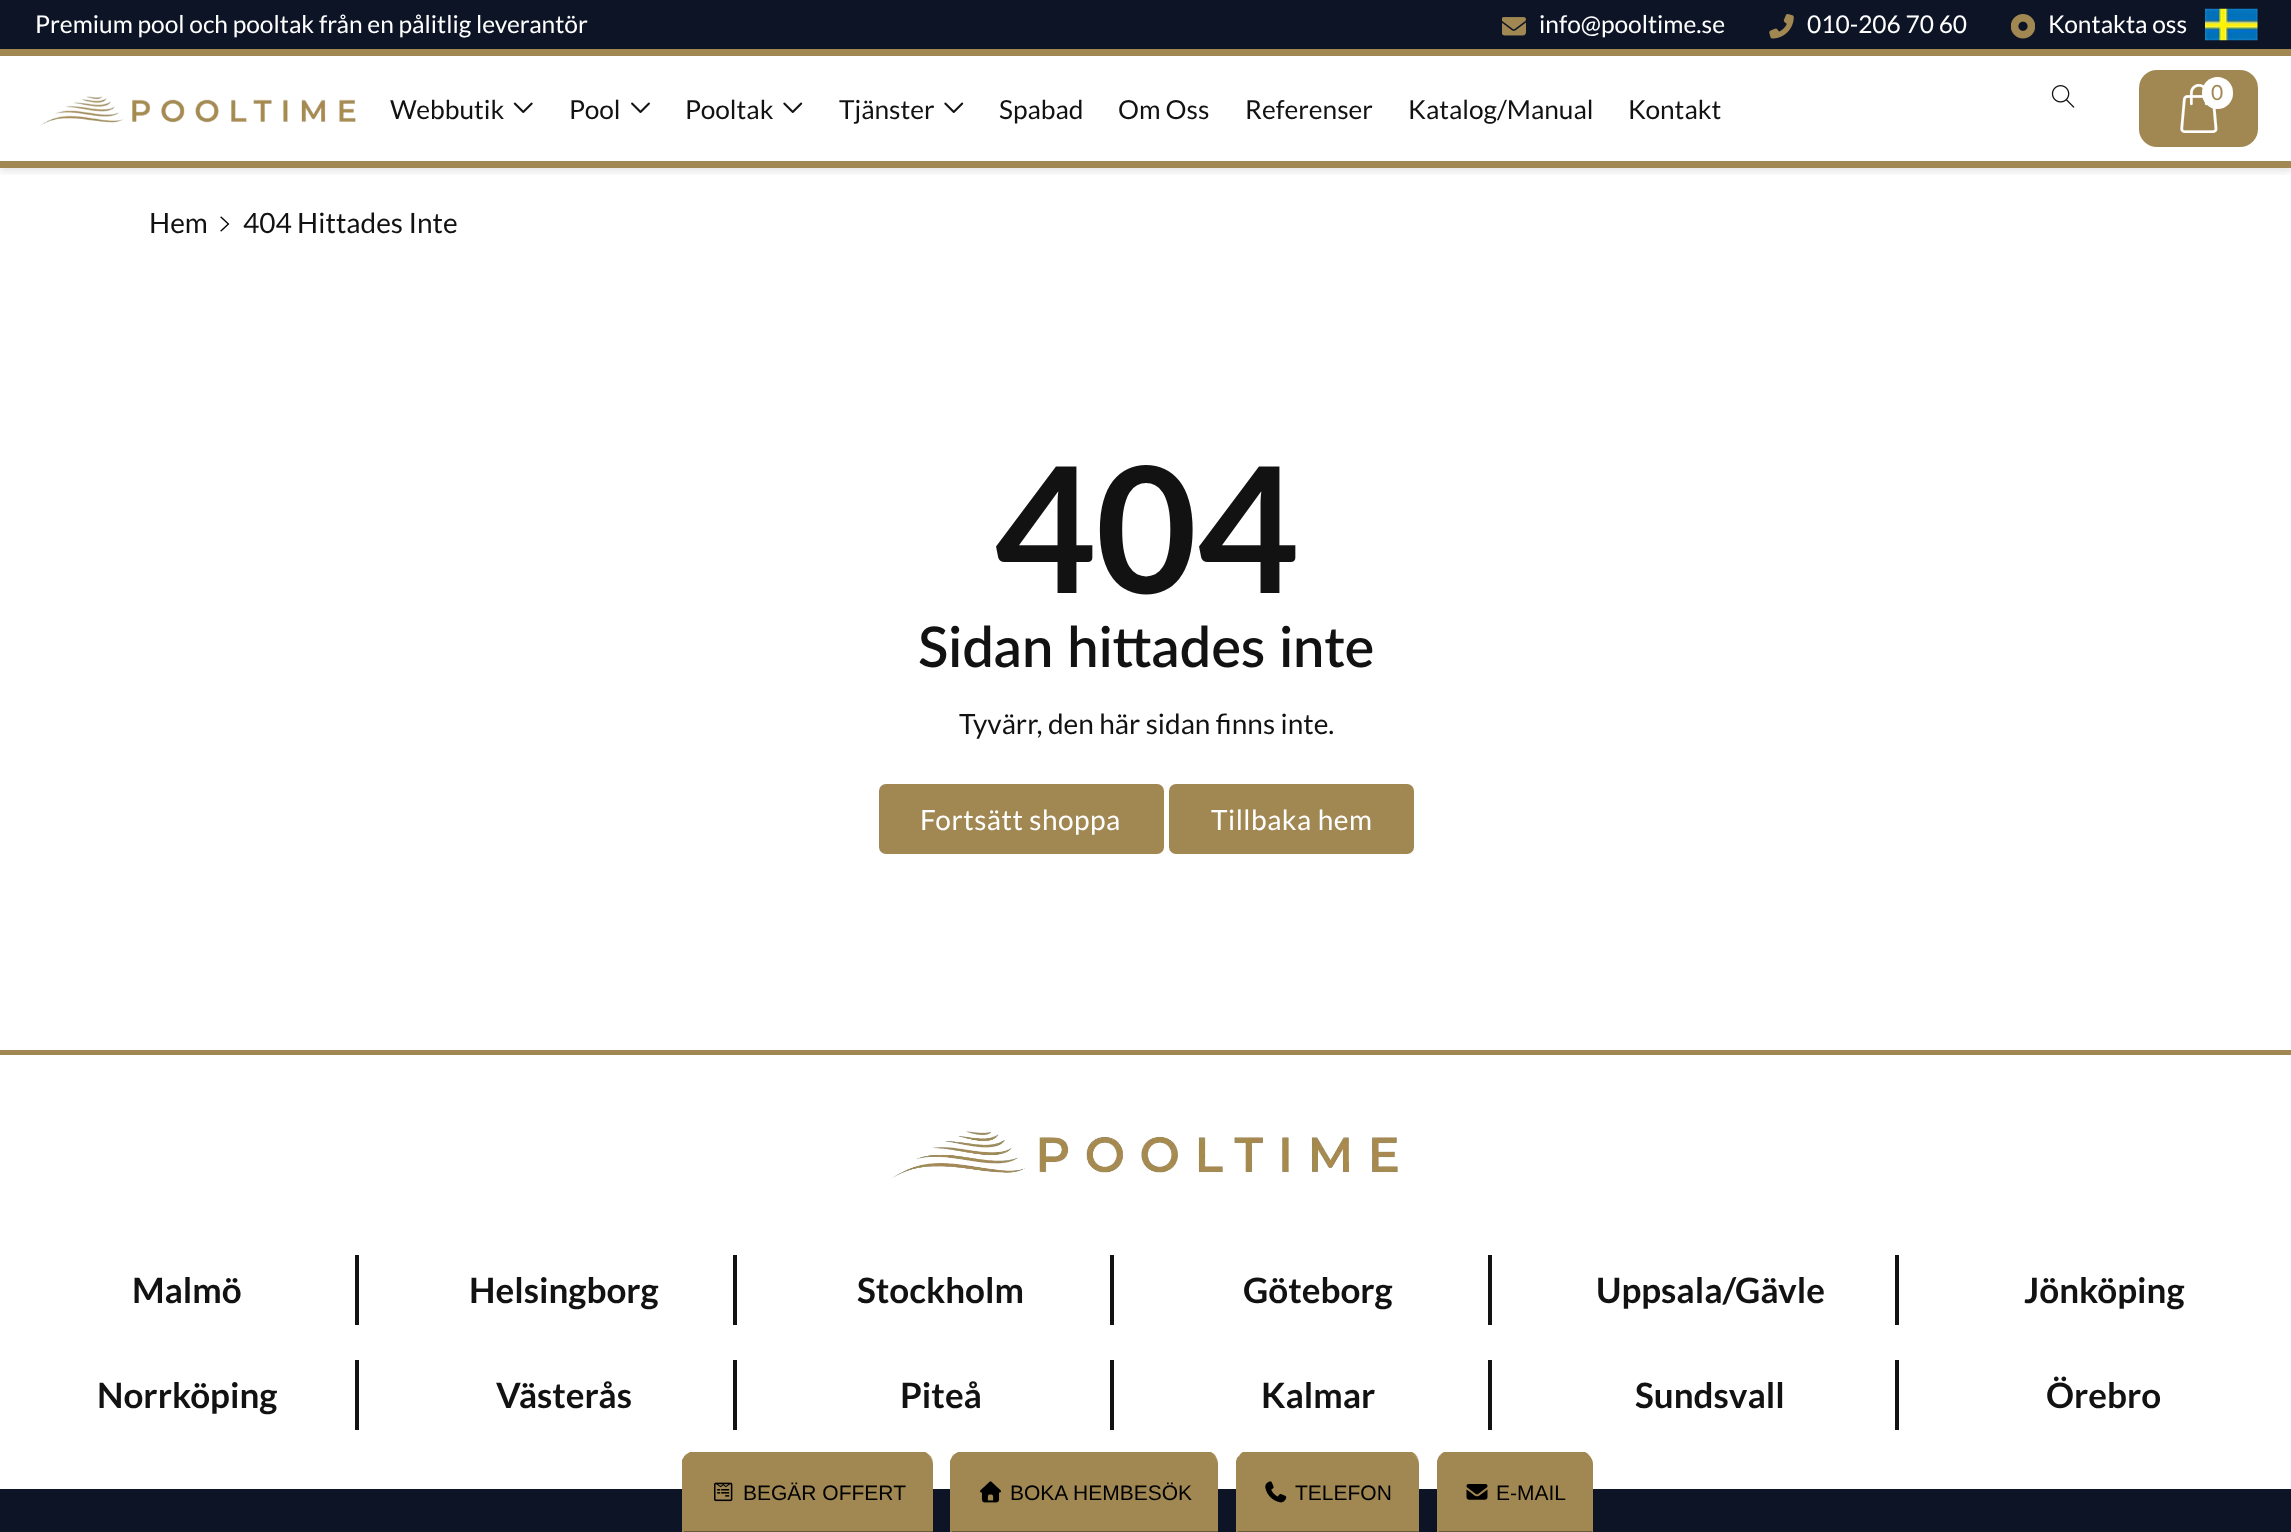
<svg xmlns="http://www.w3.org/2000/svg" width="2291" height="1532">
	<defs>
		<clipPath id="clip1"><rect x="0" y="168" width="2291" height="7" /></clipPath>
	</defs>
	<rect width="100%" height="100%" fill="#FFFFFF" />
	<rect x="0" y="0" width="2291" height="49" fill="#0D1426" />
	<text x="35" y="33" font-family="Lato" font-size="24.5" fill="#FFFFFF">Premium pool och pooltak från en pålitlig leverantör</text>
	<image x="1502" y="17" width="24" height="19" href="assets/img1.png" />
	<text x="1539" y="33" font-family="Lato" font-size="24.5" fill="#FFFFFF">info@pooltime.se</text>
	<image x="1769" y="14" width="25" height="25" href="assets/img2.png" />
	<text x="1807" y="33" font-family="Lato" font-size="24.5" fill="#FFFFFF">010-206 70 60</text>
	<image x="2011" y="14" width="24" height="25" href="assets/img3.png" />
	<text x="2048" y="33" font-family="Lato" font-size="24.5" fill="#FFFFFF">Kontakta oss</text>
	<image x="2205" y="8" width="53" height="33" href="assets/img4.png" />
	<g clip-path="url(#clip1)">
		<rect x="0" y="53" width="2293" height="119" fill="#121212" fill-opacity="0.1" filter="blur(3.5px)" />
	</g>
	<rect x="0" y="49" width="2291" height="7" fill="#A18852" />
	<rect x="0" y="161" width="2291" height="7" fill="#A18852" />
	<image x="2051" y="85" width="24" height="23" href="assets/img5.png" />
	<rect x="2139" y="70" width="119" height="77" rx="18" fill="#A18852" />
	<image x="2180" y="84" width="38" height="49" href="assets/img6.png" />
	<rect x="2202" y="77" width="31" height="32" rx="15.5" fill="#FFFFFF" />
	<text x="2211" y="100" font-family="Lato" font-size="21" fill="#A18852">0</text>
	<image x="40" y="96" width="316" height="30" href="assets/img7.png" />
	<text x="390" y="119" font-family="Lato" font-size="26.25" fill="#121212">Webbutik</text>
	<image x="513" y="102" width="20" height="11" href="assets/img8.png" />
	<text x="569" y="119" font-family="Lato" font-size="26.25" fill="#121212">Pool</text>
	<image x="631" y="102" width="19" height="11" href="assets/img9.png" />
	<text x="685" y="119" font-family="Lato" font-size="26.25" fill="#121212">Pooltak</text>
	<image x="783" y="102" width="20" height="11" href="assets/img10.png" />
	<text x="839" y="119" font-family="Lato" font-size="26.25" fill="#121212">Tjänster</text>
	<image x="944" y="102" width="20" height="11" href="assets/img10.png" />
	<g font-family="Lato" font-size="26.25" fill="#121212">
		<text x="999" y="119">Spabad</text>
		<text x="1118" y="119">Om Oss</text>
		<text x="1245" y="119">Referenser</text>
		<text x="1408" y="119">Katalog/Manual</text>
		<text x="1628" y="119">Kontakt</text>
	</g>
	<text x="149" y="233" font-family="Lato" font-size="28" fill="#121212">Hem</text>
	<image x="220" y="216" width="10" height="16" href="assets/img11.png" />
	<text x="243" y="233" font-family="Lato" font-size="28" fill="#121212">404 Hittades Inte</text>
	<text x="994" y="593" font-family="Lato" font-size="175" font-weight="700" fill="#121212">404</text>
	<text x="918" y="667" font-family="Lato" font-size="56" font-weight="600" fill="#121212">Sidan hittades inte</text>
	<text x="959" y="734" font-family="Lato" font-size="28" fill="#121212">Tyvärr, den här sidan finns inte.</text>
	<rect x="879" y="784" width="285" height="70" rx="7" fill="#A18852" />
	<text x="920" y="830" font-family="Lato" font-size="28" letter-spacing="0.5" fill="#FFFFFF">Fortsätt shoppa</text>
	<rect x="1169" y="784" width="245" height="70" rx="7" fill="#A18852" />
	<text x="1211" y="830" font-family="Lato" font-size="28" letter-spacing="0.5" fill="#FFFFFF">Tillbaka hem</text>
	<rect x="0" y="1050" width="2291" height="5" fill="#A18852" />
	<image x="892" y="1131" width="506" height="47" href="assets/img12.png" />
	<rect x="355" y="1255" width="4" height="70" fill="#121212" />
	<text x="132" y="1303" font-family="Lato" font-size="35" font-weight="700" fill="#121212">Malmö</text>
	<rect x="733" y="1255" width="4" height="70" fill="#121212" />
	<text x="469" y="1303" font-family="Lato" font-size="35" font-weight="700" fill="#121212">Helsingborg</text>
	<rect x="1110" y="1255" width="4" height="70" fill="#121212" />
	<text x="857" y="1303" font-family="Lato" font-size="35" font-weight="700" fill="#121212">Stockholm</text>
	<rect x="1488" y="1255" width="4" height="70" fill="#121212" />
	<text x="1243" y="1303" font-family="Lato" font-size="35" font-weight="700" fill="#121212">Göteborg</text>
	<rect x="1895" y="1255" width="4" height="70" fill="#121212" />
	<g font-family="Lato" font-size="35" font-weight="700" fill="#121212">
		<text x="1596" y="1303">Uppsala/Gävle</text>
		<text x="2024" y="1303">Jönköping</text>
	</g>
	<rect x="355" y="1360" width="4" height="70" fill="#121212" />
	<text x="97" y="1408" font-family="Lato" font-size="35" font-weight="700" fill="#121212">Norrköping</text>
	<rect x="733" y="1360" width="4" height="70" fill="#121212" />
	<text x="496" y="1408" font-family="Lato" font-size="35" font-weight="700" fill="#121212">Västerås</text>
	<rect x="1110" y="1360" width="4" height="70" fill="#121212" />
	<text x="900" y="1408" font-family="Lato" font-size="35" font-weight="700" fill="#121212">Piteå</text>
	<rect x="1488" y="1360" width="4" height="70" fill="#121212" />
	<text x="1261" y="1408" font-family="Lato" font-size="35" font-weight="700" fill="#121212">Kalmar</text>
	<rect x="1895" y="1360" width="4" height="70" fill="#121212" />
	<g font-family="Lato" font-size="35" font-weight="700" fill="#121212">
		<text x="1635" y="1408">Sundsvall</text>
		<text x="2046" y="1408">Örebro</text>
	</g>
	<rect x="0" y="1489" width="2291" height="43" fill="#0D1426" />
	<path d="M694 1453H922C928 1453 933 1458 933 1464V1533H683V1464C683 1458 688 1453 694 1453Z" fill="#A18852" />
	<path d="M693 1454C690 1454 688 1455 687 1457L685 1455L690 1452H925C928 1453 933 1458 933 1461C932 1457 927 1454 922 1454Z" fill="#A18852" />
	<path d="M933 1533V1531H684L682 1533Z" fill="#6B5B37" />
	<path d="M682 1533V1460L685 1455L687 1457C685 1458 684 1460 684 1463V1531Z" fill="#A18852" />
	<image x="714" y="1482" width="19" height="20" href="assets/img13.png" />
	<text x="743" y="1500" font-family="Liberation Sans" font-size="21" fill="#000000">BEGÄR OFFERT</text>
	<path d="M961 1453H1207C1213 1453 1218 1458 1218 1464V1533H950V1464C950 1458 955 1453 961 1453Z" fill="#A18852" />
	<path d="M961 1454C958 1454 956 1455 955 1457L953 1455L958 1452H1211L1214 1454C1216 1456 1218 1460 1218 1463C1218 1458 1213 1454 1208 1454Z" fill="#A18852" />
	<path d="M1218 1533V1531H952L950 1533Z" fill="#6B5B37" />
	<path d="M950 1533V1461C951 1459 952 1457 953 1455L955 1457C953 1458 952 1461 952 1463V1531Z" fill="#A18852" />
	<image x="980" y="1481" width="21" height="22" href="assets/img14.png" />
	<text x="1010" y="1500" font-family="Liberation Sans" font-size="21" fill="#000000">BOKA HEMBESÖK</text>
	<path d="M1247 1453H1408C1414 1453 1419 1458 1419 1464V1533H1236V1464C1236 1458 1241 1453 1247 1453Z" fill="#A18852" />
	<path d="M1246 1454C1244 1454 1241 1455 1240 1457L1239 1456C1240 1454 1241 1453 1243 1452H1412C1416 1454 1419 1458 1419 1463C1419 1458 1415 1454 1409 1454Z" fill="#A18852" />
	<path d="M1236 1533H1419V1531H1238Z" fill="#6B5B37" />
	<path d="M1236 1532V1463C1236 1460 1237 1457 1239 1456L1240 1457C1238 1458 1237 1460 1237 1463V1531H1238Z" fill="#A18852" />
	<image x="1265" y="1481" width="22" height="22" href="assets/img15.png" />
	<text x="1295" y="1500" font-family="Liberation Sans" font-size="21" fill="#000000">TELEFON</text>
	<path d="M1448 1453H1582C1588 1453 1593 1458 1593 1464V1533H1437V1464C1437 1458 1442 1453 1448 1453Z" fill="#A18852" />
	<path d="M1447 1454C1445 1454 1442 1455 1441 1457L1440 1455C1441 1454 1442 1453 1444 1452H1585C1589 1454 1592 1458 1592 1463C1592 1458 1588 1454 1582 1454Z" fill="#A18852" />
	<path d="M1437 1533H1592V1531H1439Z" fill="#6B5B37" />
	<path d="M1437 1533V1463C1437 1460 1438 1457 1440 1455L1441 1457C1439 1458 1438 1460 1438 1463V1531H1439Z" fill="#A18852" />
	<image x="1466" y="1484" width="22" height="16" href="assets/img16.png" />
	<text x="1496" y="1500" font-family="Liberation Sans" font-size="21" fill="#000000">E-MAIL</text>
</svg>
